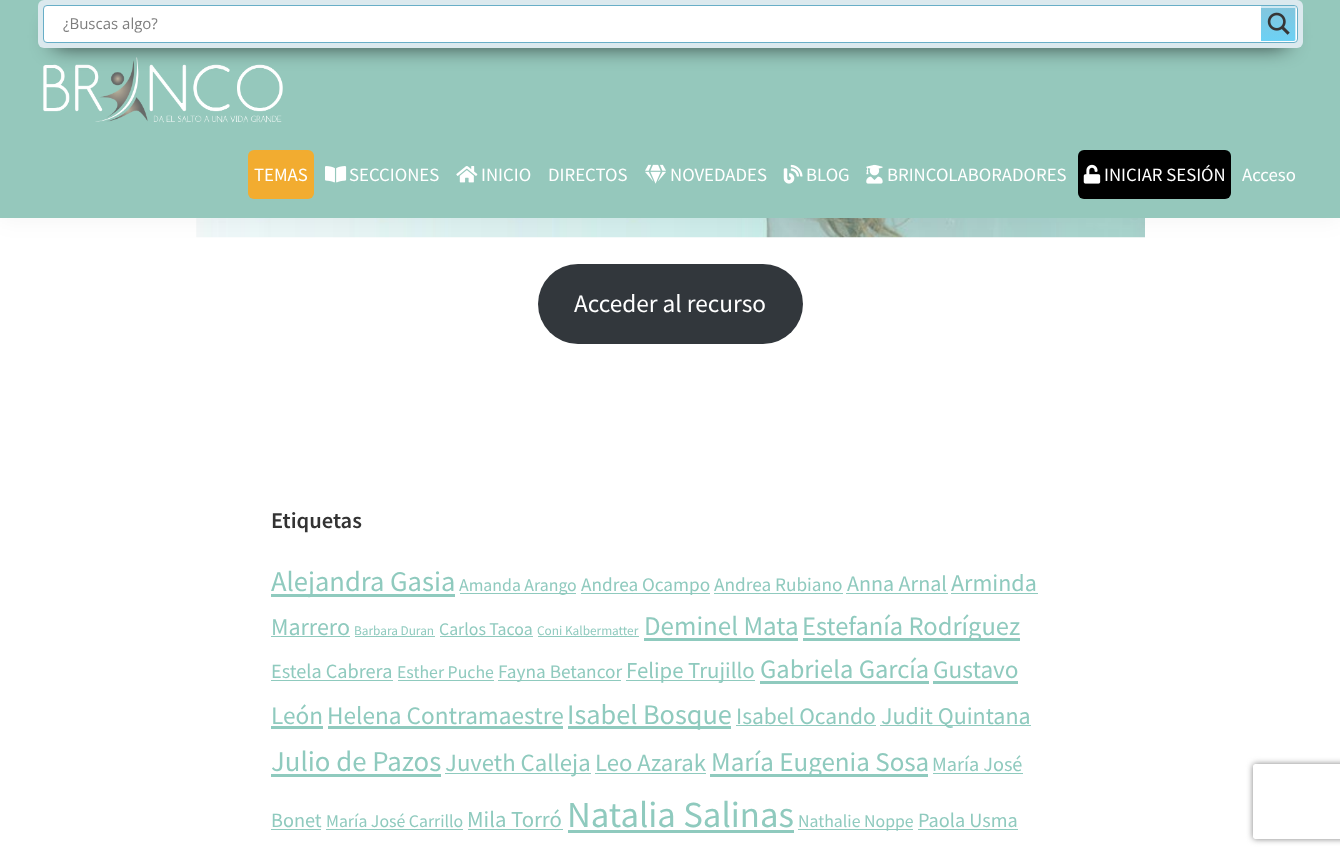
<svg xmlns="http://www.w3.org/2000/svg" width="1340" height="856">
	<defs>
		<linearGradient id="g1" gradientUnits="userSpaceOnUse" x1="1279" y1="6.2" x2="1279" y2="41"><stop offset="0" stop-color="#84C5DC" /><stop offset="1" stop-color="#6CD1F5" /></linearGradient>
		<clipPath id="clip1"><rect x="1261" y="6" width="35" height="35" /></clipPath>
		<clipPath id="clip2"><path d="M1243 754H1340V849H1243ZM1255.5 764H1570.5C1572 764 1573 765 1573 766.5V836.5C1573 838 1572 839 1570.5 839H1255.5C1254 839 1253 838 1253 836.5V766.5C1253 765 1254 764 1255.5 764Z" clip-rule="evenodd" /></clipPath>
	</defs>
	<rect width="100%" height="100%" fill="#FFFFFF" />
	<image x="196" y="218" width="949" height="20" href="assets/img9.png" />
	<rect x="0" y="0" width="1340" height="218" fill="#000000" fill-opacity="0.05" filter="blur(12.5px)" />
	<rect x="0" y="0" width="1340" height="218" fill="#95C8BC" />
	<image x="43" y="57" width="240" height="66" href="assets/img2.png" />
	<rect x="54" y="29" width="1232" height="15" fill="#000000" filter="blur(11px)" />
	<rect x="38" y="0" width="1265" height="48" rx="6" fill="#DBE9EE" />
	<rect x="43.5" y="5.5" width="1254" height="37" rx="3.5" fill="#FFFFFF" stroke="#68AEC7" />
	<text x="63" y="29" font-family="Open Sans" font-size="15" fill="#7D7D7D">¿Buscas algo?</text>
	<path d="M1261 6H1293.5C1295 6 1296 7 1296 8.5V38.5C1296 40 1295 41 1293.5 41H1261Z" fill="url(#g1)" />
	<g clip-path="url(#clip1)">
		<path d="M1260 8V41H1138V6H1294C1295 6 1296 7 1296 8V38C1296 39 1296 40 1295 41V8Z" fill="#FFFFFF" fill-opacity="0.61" />
	</g>
	<image x="1267" y="12" width="23" height="23" href="assets/img1.png" />
	<rect x="248" y="150" width="66" height="49" rx="6" fill="#F2AC30" />
	<text x="254" y="181" font-family="Source Sans Pro" font-size="18.75" fill="#FFFFFF">TEMAS</text>
	<image x="325" y="166" width="22" height="17" href="assets/img3.png" />
	<text x="349" y="181" font-family="Source Sans Pro" font-size="18.75" fill="#FFFFFF">SECCIONES</text>
	<image x="456" y="166" width="22" height="17" href="assets/img4.png" />
	<g font-family="Source Sans Pro" font-size="18.75" fill="#FFFFFF">
		<text x="481" y="181">INICIO</text>
		<text x="548" y="181">DIRECTOS</text>
	</g>
	<image x="645" y="164" width="21" height="20" href="assets/img5.png" />
	<text x="670" y="181" font-family="Source Sans Pro" font-size="18.75" fill="#FFFFFF">NOVEDADES</text>
	<image x="783" y="164" width="20" height="20" href="assets/img6.png" />
	<text x="806" y="181" font-family="Source Sans Pro" font-size="18.75" fill="#FFFFFF">BLOG</text>
	<image x="866" y="164" width="17" height="20" href="assets/img7.png" />
	<text x="887" y="181" font-family="Source Sans Pro" font-size="18.75" fill="#FFFFFF">BRINCOLABORADORES</text>
	<rect x="1078" y="150" width="153" height="49" rx="6" fill="#000000" />
	<image x="1083" y="164" width="18" height="20" href="assets/img8.png" />
	<g font-family="Source Sans Pro" font-size="18.75" fill="#FFFFFF">
		<text x="1104" y="181">INICIAR SESIÓN</text>
		<text x="1242" y="181">Acceso</text>
	</g>
	<rect x="538" y="264" width="265" height="80" rx="40" fill="#32373C" />
	<text x="574" y="312" font-family="Source Sans Pro" font-size="25.25" fill="#FFFFFF">Acceder al recurso</text>
	<text x="271" y="528" font-family="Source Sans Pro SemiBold" font-size="22.5" font-weight="600" fill="#333333">Etiquetas</text>
	<rect x="271" y="594" width="184" height="3" fill="#8FCABE" />
	<text x="271" y="591" font-family="Source Sans Pro" font-size="28.5" fill="#8FCABE">Alejandra Gasia</text>
	<rect x="460" y="593" width="116" height="1" fill="#8FCABE" />
	<text x="459" y="591" font-family="Source Sans Pro" font-size="17.75" fill="#8FCABE">Amanda Arango</text>
	<rect x="581" y="593" width="129" height="1" fill="#8FCABE" />
	<g font-family="Source Sans Pro" font-size="19.25" fill="#8FCABE">
		<text x="581" y="591">Andrea Ocampo</text>
		<text x="714" y="591">Andrea Rubiano</text>
	</g>
	<rect x="714" y="593" width="129" height="1" fill="#8FCABE" />
	<text x="847" y="591" font-family="Source Sans Pro" font-size="22" fill="#8FCABE">Anna Arnal</text>
	<rect x="846" y="593" width="102" height="1" fill="#8FCABE" />
	<text x="951" y="591" font-family="Source Sans Pro" font-size="24" fill="#8FCABE">Arminda</text>
	<rect x="951" y="593" width="87" height="1" fill="#8FCABE" />
	<text x="271" y="635" font-family="Source Sans Pro" font-size="24" fill="#8FCABE">Marrero</text>
	<rect x="271" y="636" width="79" height="1" fill="#8FCABE" />
	<text x="354" y="635" font-family="Source Sans Pro" font-size="13.25" fill="#8FCABE">Barbara Duran</text>
	<rect x="355" y="636" width="80" height="1" fill="#8FCABE" />
	<text x="439" y="635" font-family="Source Sans Pro" font-size="17.75" fill="#8FCABE">Carlos Tacoa</text>
	<rect x="440" y="636" width="93" height="1" fill="#8FCABE" />
	<text x="537" y="635" font-family="Source Sans Pro" font-size="13.25" fill="#8FCABE">Coni Kalbermatter</text>
	<rect x="538" y="636" width="101" height="1" fill="#8FCABE" />
	<text x="644" y="635" font-family="Source Sans Pro" font-size="27" fill="#8FCABE">Deminel Mata</text>
	<rect x="644" y="638" width="154" height="3" fill="#8FCABE" />
	<rect x="803" y="638" width="217" height="3" fill="#8FCABE" />
	<text x="802" y="635" font-family="Source Sans Pro" font-size="26.5" fill="#8FCABE">Estefanía Rodríguez</text>
	<text x="271" y="678" font-family="Source Sans Pro" font-size="20.25" fill="#8FCABE">Estela Cabrera</text>
	<rect x="271" y="680" width="122" height="1" fill="#8FCABE" />
	<text x="397" y="678" font-family="Source Sans Pro" font-size="17.75" fill="#8FCABE">Esther Puche</text>
	<rect x="398" y="680" width="96" height="1" fill="#8FCABE" />
	<rect x="498" y="680" width="123" height="1" fill="#8FCABE" />
	<text x="498" y="678" font-family="Source Sans Pro" font-size="19.25" fill="#8FCABE">Fayna Betancor</text>
	<rect x="626" y="680" width="129" height="1" fill="#8FCABE" />
	<text x="626" y="678" font-family="Source Sans Pro" font-size="22.75" fill="#8FCABE">Felipe Trujillo</text>
	<text x="760" y="678" font-family="Source Sans Pro" font-size="26.5" fill="#8FCABE">Gabriela García</text>
	<rect x="760" y="681" width="169" height="3" fill="#8FCABE" />
	<text x="933" y="678" font-family="Source Sans Pro" font-size="25.25" fill="#8FCABE">Gustavo</text>
	<rect x="933" y="681" width="85" height="3" fill="#8FCABE" />
	<text x="271" y="724" font-family="Source Sans Pro" font-size="25.25" fill="#8FCABE">León</text>
	<rect x="271" y="726" width="52" height="3" fill="#8FCABE" />
	<text x="327" y="724" font-family="Source Sans Pro" font-size="25.25" fill="#8FCABE">Helena Contramaestre</text>
	<rect x="328" y="726" width="235" height="3" fill="#8FCABE" />
	<rect x="568" y="726" width="163" height="3" fill="#8FCABE" />
	<text x="567" y="724" font-family="Source Sans Pro" font-size="28.25" fill="#8FCABE">Isabel Bosque</text>
	<text x="736" y="724" font-family="Source Sans Pro" font-size="23.5" fill="#8FCABE">Isabel Ocando</text>
	<rect x="736" y="725" width="140" height="1" fill="#8FCABE" />
	<rect x="880" y="725" width="151" height="1" fill="#8FCABE" />
	<text x="881" y="724" font-family="Source Sans Pro" font-size="24" fill="#8FCABE">Judit Quintana</text>
	<text x="271" y="771" font-family="Source Sans Pro" font-size="28.75" fill="#8FCABE">Julio de Pazos</text>
	<rect x="271" y="774" width="170" height="3" fill="#8FCABE" />
	<rect x="445" y="773" width="146" height="1" fill="#8FCABE" />
	<g font-family="Source Sans Pro" font-size="24.75" fill="#8FCABE">
		<text x="445" y="771">Juveth Calleja</text>
		<text x="595" y="771">Leo Azarak</text>
	</g>
	<rect x="595" y="773" width="111" height="1" fill="#8FCABE" />
	<rect x="710" y="774" width="218" height="3" fill="#8FCABE" />
	<text x="711" y="771" font-family="Source Sans Pro" font-size="27" fill="#8FCABE">María Eugenia Sosa</text>
	<text x="932" y="771" font-family="Source Sans Pro" font-size="20.25" fill="#8FCABE">María José</text>
	<rect x="933" y="773" width="90" height="1" fill="#8FCABE" />
	<text x="271" y="827" font-family="Source Sans Pro" font-size="20.25" fill="#8FCABE">Bonet</text>
	<rect x="271" y="829" width="50" height="1" fill="#8FCABE" />
	<text x="326" y="827" font-family="Source Sans Pro" font-size="17.75" fill="#8FCABE">María José Carrillo</text>
	<rect x="326" y="829" width="137" height="1" fill="#8FCABE" />
	<text x="467" y="827" font-family="Source Sans Pro" font-size="22.75" fill="#8FCABE">Mila Torró</text>
	<rect x="468" y="829" width="95" height="1" fill="#8FCABE" />
	<text x="567" y="827" font-family="Source Sans Pro" font-size="36.75" fill="#8FCABE">Natalia Salinas</text>
	<rect x="568" y="830" width="226" height="3" fill="#8FCABE" />
	<rect x="798" y="829" width="115" height="1" fill="#8FCABE" />
	<text x="798" y="827" font-family="Source Sans Pro" font-size="17.75" fill="#8FCABE">Nathalie Noppe</text>
	<text x="918" y="827" font-family="Source Sans Pro" font-size="20.25" fill="#8FCABE">Paola Usma</text>
	<rect x="918" y="829" width="100" height="1" fill="#8FCABE" />
	<g clip-path="url(#clip2)">
		<rect x="1253" y="764" width="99" height="75" rx="2.5" fill="#808080" filter="blur(3px)" />
	</g>
</svg>
